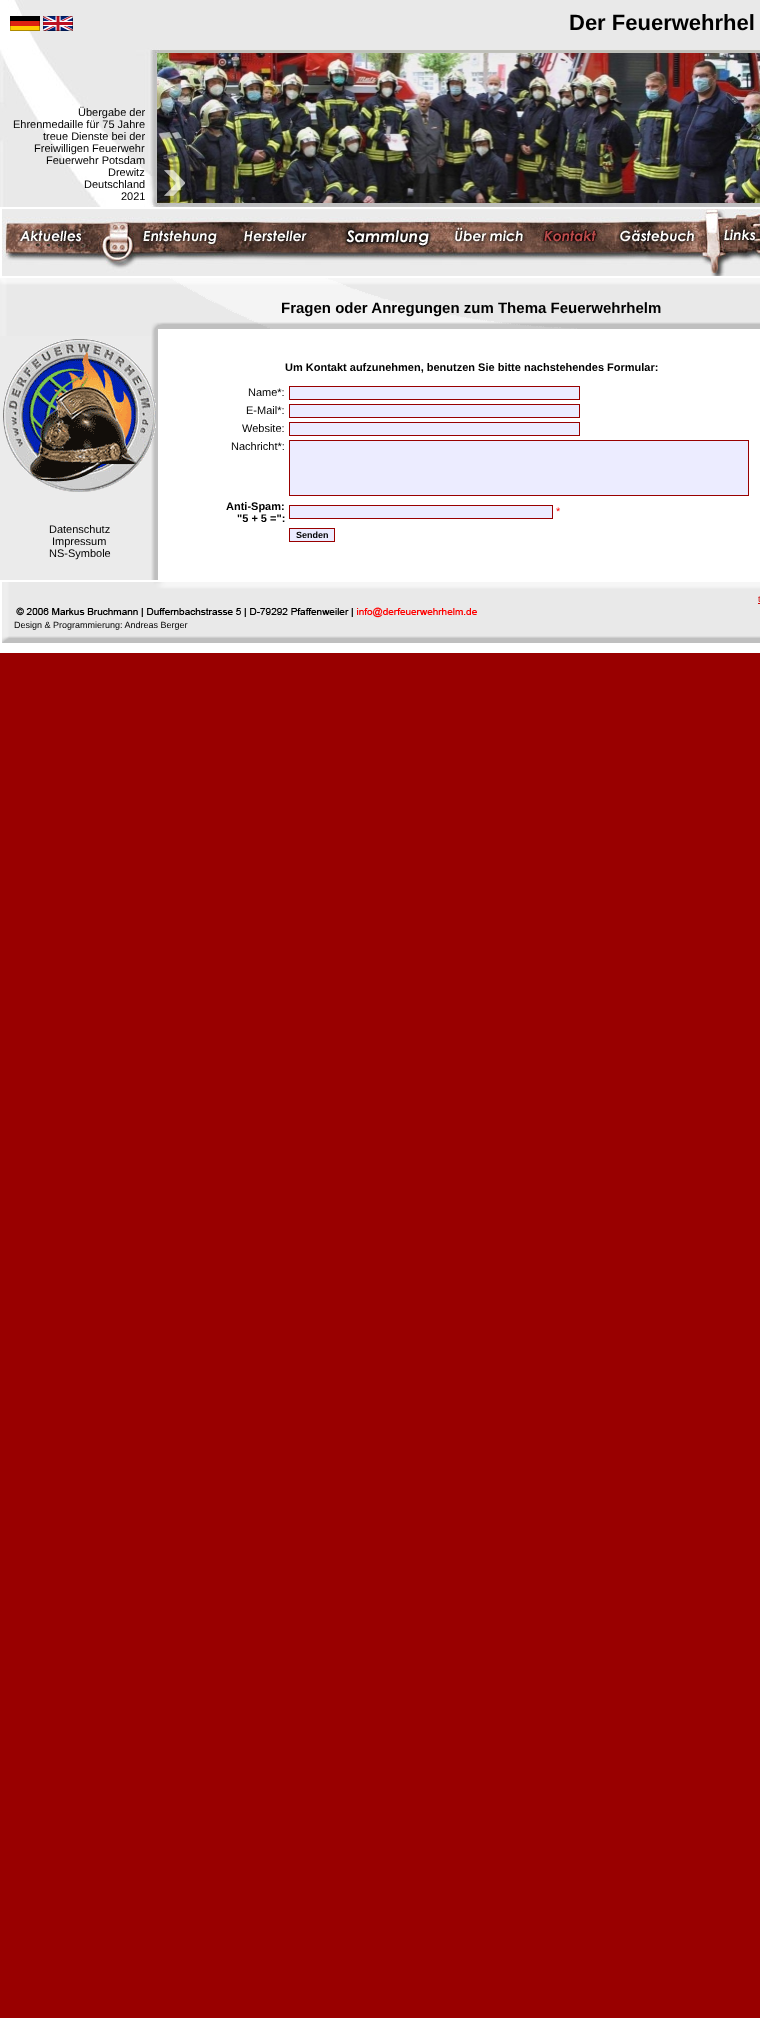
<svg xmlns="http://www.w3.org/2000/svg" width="760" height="2018">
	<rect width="100%" height="100%" fill="#990000" />
	<image x="0" y="0" width="760" height="207" href="assets/img1.png" />
	<image x="10" y="16" width="30" height="15" href="assets/img2.png" />
	<image x="43" y="16" width="30" height="15" href="assets/img3.png" />
	<text x="569" y="30" font-family="Liberation Sans" font-size="22" font-weight="700" fill="#000000">Der Feuerwehrhel</text>
	<g font-family="Liberation Sans" font-size="11" fill="#000000">
		<text x="78" y="116">Übergabe der</text>
		<text x="13" y="128">Ehrenmedaille für 75 Jahre</text>
		<text x="43" y="140">treue Dienste bei der</text>
		<text x="34" y="152">Freiwilligen Feuerwehr</text>
		<text x="46" y="164">Feuerwehr Potsdam</text>
		<text x="108" y="176">Drewitz</text>
		<text x="84" y="188">Deutschland</text>
		<text x="121" y="200">2021</text>
	</g>
	<image x="157" y="53" width="603" height="150" href="assets/img4.png" />
	<image x="164" y="170" width="21" height="26" href="assets/img5.png" />
	<rect x="0" y="207" width="760" height="71" fill="#FFFFFF" />
	<image x="2" y="209" width="116" height="67" href="assets/img6.png" />
	<image x="118" y="209" width="107" height="67" href="assets/img7.png" />
	<image x="225" y="209" width="105" height="67" href="assets/img8.png" />
	<image x="330" y="209" width="115" height="67" href="assets/img9.png" />
	<image x="445" y="209" width="85" height="67" href="assets/img10.png" />
	<image x="530" y="209" width="81" height="67" href="assets/img11.png" />
	<image x="611" y="209" width="99" height="67" href="assets/img12.png" />
	<image x="710" y="209" width="50" height="67" href="assets/img13.png" />
	<image x="0" y="278" width="159" height="58" href="assets/img14.png" />
	<image x="159" y="278" width="601" height="58" href="assets/img15.png" />
	<text x="281" y="313" font-family="Liberation Sans" font-size="15" font-weight="700" fill="#000000">Fragen oder Anregungen zum Thema Feuerwehrhelm</text>
	<rect x="159" y="336" width="601" height="244" fill="#FFFFFF" />
	<text x="285" y="371" font-family="Liberation Sans" font-size="11" font-weight="700" fill="#000000">Um Kontakt aufzunehmen, benutzen Sie bitte nachstehendes Formular:</text>
	<text x="248" y="396" font-family="Liberation Sans" font-size="11" fill="#000000">Name*:</text>
	<rect x="289.5" y="386.5" width="290" height="13" fill="#ECECFF" stroke="#990000" />
	<text x="246" y="414" font-family="Liberation Sans" font-size="11" fill="#000000">E-Mail*:</text>
	<rect x="289.5" y="404.5" width="290" height="13" fill="#ECECFF" stroke="#990000" />
	<text x="242" y="432" font-family="Liberation Sans" font-size="11" fill="#000000">Website:</text>
	<rect x="289.5" y="422.5" width="290" height="13" fill="#ECECFF" stroke="#990000" />
	<text x="231" y="450" font-family="Liberation Sans" font-size="11" fill="#000000">Nachricht*:</text>
	<rect x="289.5" y="440.5" width="459" height="55" fill="#ECECFF" stroke="#990000" />
	<g font-family="Liberation Sans" font-size="11" font-weight="700" fill="#000000">
		<text x="226" y="510">Anti-Spam:</text>
		<text x="237" y="522">"5 + 5 =":</text>
	</g>
	<rect x="289.5" y="505.5" width="263" height="13" fill="#ECECFF" stroke="#990000" />
	<text x="556" y="515" font-family="Liberation Sans" font-size="11" fill="#FF0000">*</text>
	<rect x="289.5" y="528.5" width="45" height="13" fill="#ECECFF" stroke="#990000" />
	<text x="296" y="538" font-family="Liberation Sans" font-size="9" font-weight="700" fill="#000000">Senden</text>
	<rect x="0" y="336" width="151" height="244" fill="#EBEBEB" />
	<image x="151" y="336" width="8" height="244" href="assets/img16.png" />
	<image x="3" y="339" width="153" height="153" href="assets/img17.png" />
	<g font-family="Liberation Sans" font-size="11" fill="#000000">
		<text x="49" y="533">Datenschutz</text>
		<text x="52" y="545">Impressum</text>
		<text x="49" y="557">NS-Symbole</text>
	</g>
	<rect x="0" y="580" width="760" height="73" fill="#FFFFFF" />
	<image x="2" y="582" width="758" height="61" href="assets/img18.png" />
	<text x="758" y="602" font-family="Liberation Sans" font-size="9" fill="#CC0000">t</text>
	<rect x="758" y="603" width="2" height="1" fill="#CC0000" />
	<image x="16" y="607" width="43" height="9" href="assets/img19.png" />
	<image x="59" y="608" width="79" height="7" href="assets/img20.png" />
	<image x="141" y="608" width="32" height="9" href="assets/img21.png" />
	<image x="173" y="608" width="96" height="9" href="assets/img22.png" />
	<image x="269" y="608" width="94" height="9" href="assets/img23.png" />
	<image x="363" y="607" width="53" height="11" href="assets/img24.png" />
	<image x="416" y="608" width="19" height="7" href="assets/img25.png" />
	<image x="435" y="608" width="42" height="7" href="assets/img26.png" />
	<text x="14" y="628" font-family="Liberation Sans" font-size="9" fill="#000000">Design &amp; Programmierung: Andreas Berger</text>
</svg>
